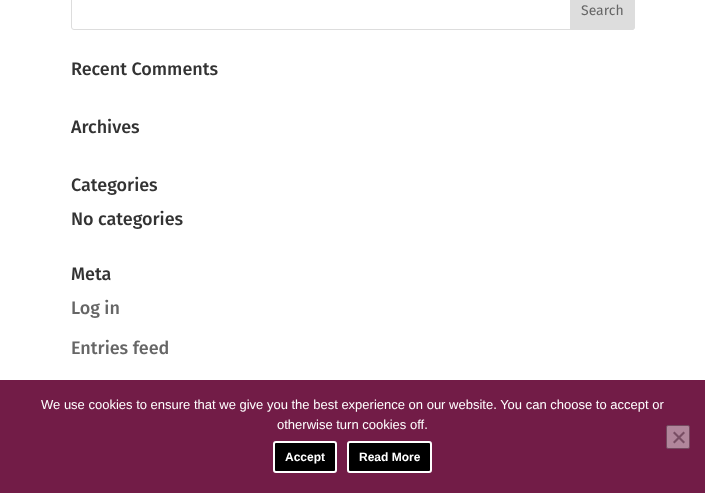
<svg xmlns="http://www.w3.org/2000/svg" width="705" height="493">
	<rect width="100%" height="100%" fill="#FFFFFF" />
	<rect x="71.5" y="-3.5" width="563" height="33" rx="2.5" fill="none" stroke="#DDDDDD" />
	<path d="M570.5-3.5H632C633.5-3.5 634.5-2.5 634.5-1V27C634.5 28.5 633.5 29.5 632 29.5H570.5Z" fill="#DDDDDD" stroke="#DDDDDD" />
	<text x="581" y="15" font-family="Fira Sans" font-size="14" fill="#666666">Search</text>
	<g font-family="Fira Sans" font-size="18" font-weight="500" fill="#333333">
		<text x="71" y="75">Recent Comments</text>
		<text x="71" y="133">Archives</text>
		<text x="71" y="191">Categories</text>
		<text x="71" y="225">No categories</text>
		<text x="71" y="280">Meta</text>
	</g>
	<g font-family="Fira Sans" font-size="18" font-weight="500" fill="#666666">
		<text x="71" y="314">Log in</text>
		<text x="71" y="354">Entries feed</text>
	</g>
	<rect x="0" y="380" width="705" height="113" fill="#721C47" />
	<g font-family="Liberation Sans" font-size="13" fill="#FFFFFF">
		<text x="41" y="409">We use cookies to ensure that we give you the best experience on our website. You can choose to accept or</text>
		<text x="277" y="429">otherwise turn cookies off.</text>
	</g>
	<rect x="666.5" y="425.5" width="23" height="23" rx="1.5" fill="#B1869B" stroke="#74495F" />
	<path d="M683.5 431.5L685 433L674.5 443.5L673 442Z" fill="#794E64" />
	<path d="M673 433L674.5 431.5L685 442L683.5 443.5Z" fill="#794E64" />
	<rect x="274" y="442" width="62" height="30" rx="2" fill="#000000" stroke="#FFFFFF" stroke-width="2" />
	<text x="285" y="461" font-family="Liberation Sans" font-size="12" font-weight="700" fill="#FFFFFF">Accept</text>
	<rect x="348" y="442" width="83" height="30" rx="2" fill="#000000" stroke="#FFFFFF" stroke-width="2" />
	<text x="359" y="461" font-family="Liberation Sans" font-size="12" font-weight="700" fill="#FFFFFF">Read More</text>
</svg>
